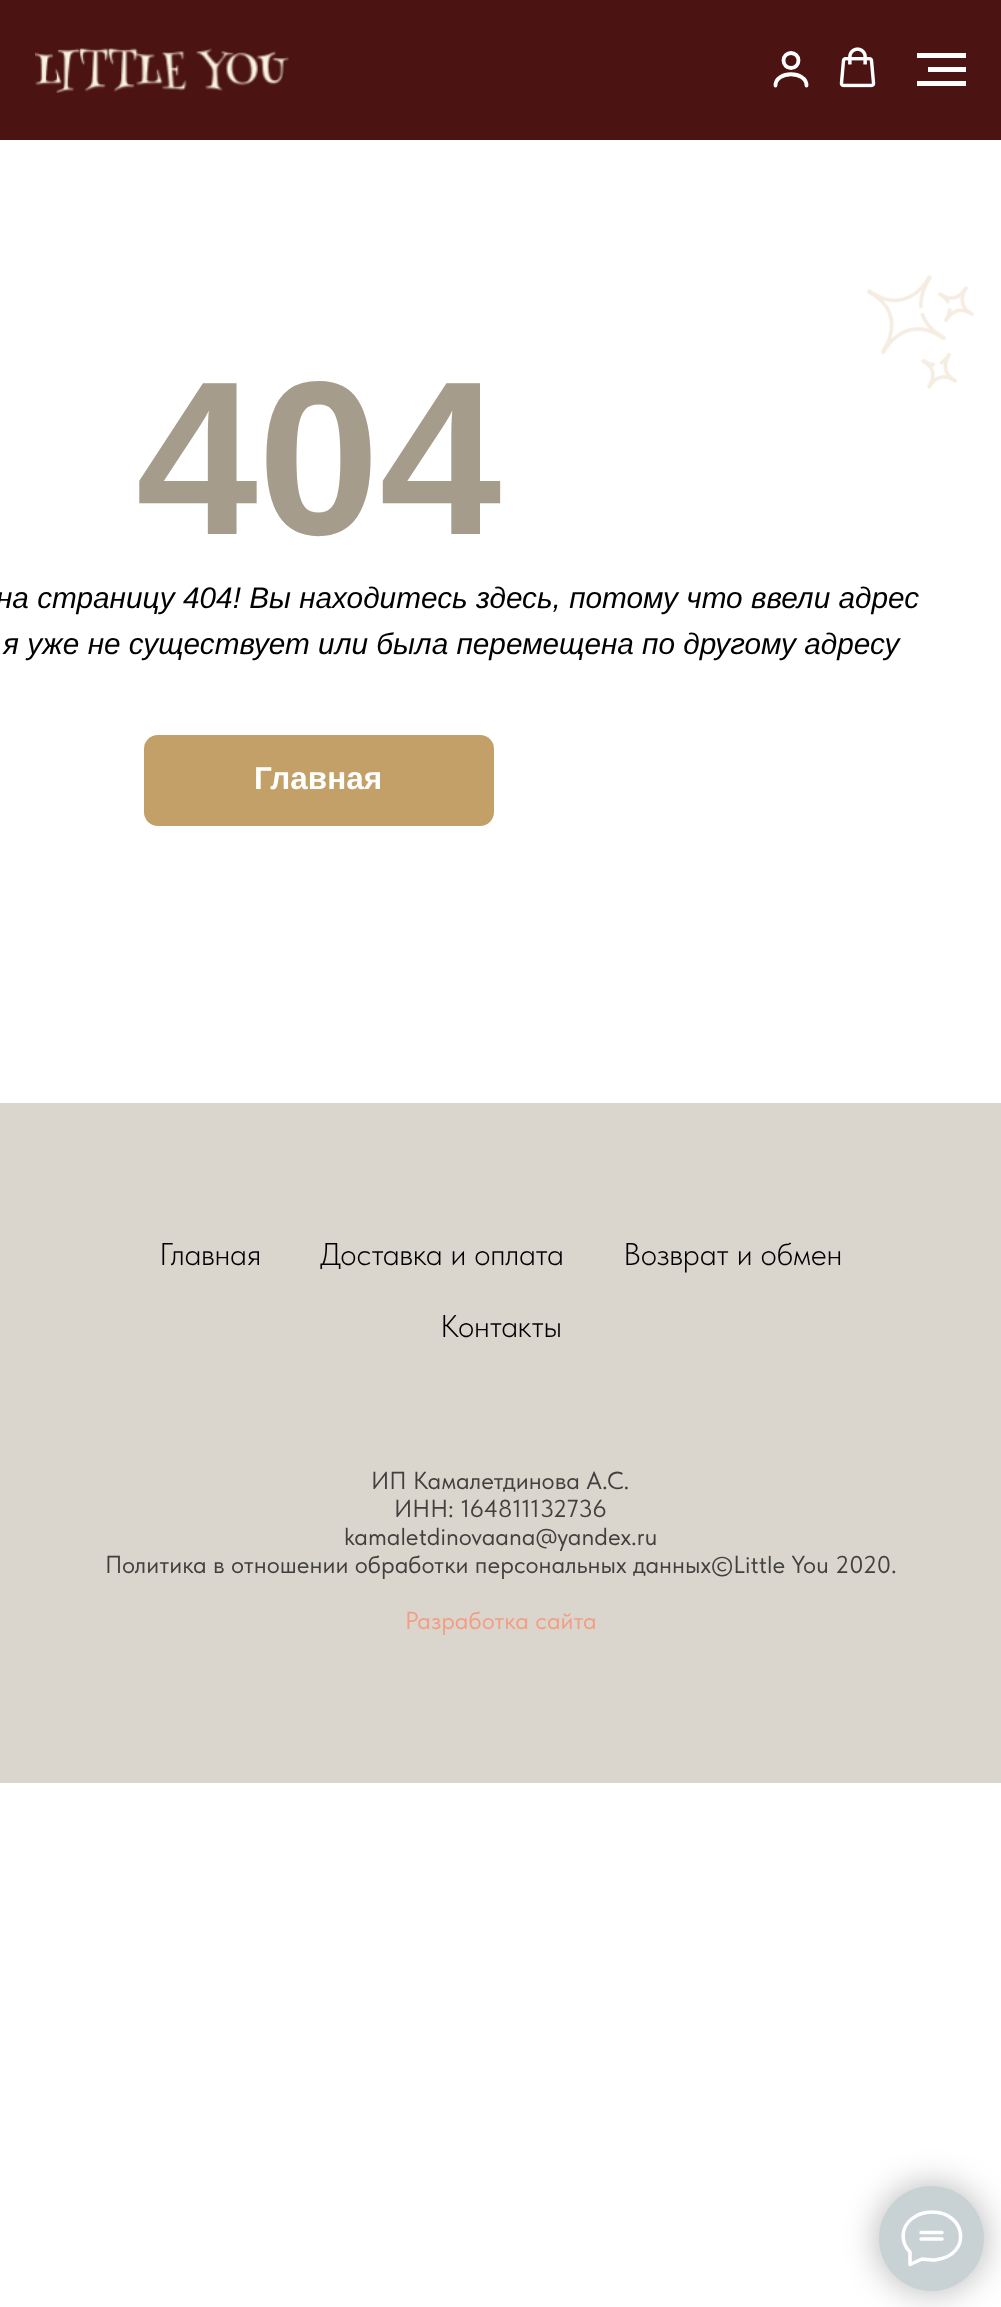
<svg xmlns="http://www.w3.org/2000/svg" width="1001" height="2307">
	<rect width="100%" height="100%" fill="#FFFFFF" />
	<rect x="0" y="0" width="1001" height="140" fill="#4B1312" />
	<image x="35" y="48" width="254" height="45" href="assets/img1.png" />
	<circle cx="791" cy="60.5" r="7.5" fill="none" stroke="#FFFFFF" stroke-width="3.8" />
	<path d="M806.5 85.5C806.5 70.5 775.5 70.5 775.5 85.5" fill="none" stroke="#FFFFFF" stroke-width="3.8" stroke-linecap="round" />
	<image x="839" y="47" width="37" height="41" href="assets/img2.png" />
	<rect x="917" y="53" width="49" height="5" fill="#FFFFFF" />
	<rect x="928" y="67" width="38" height="5" fill="#FFFFFF" />
	<rect x="917" y="81" width="49" height="5" fill="#FFFFFF" />
	<image x="867" y="275" width="107" height="114" href="assets/img3.png" />
	<text x="136" y="534" font-family="Liberation Sans" font-size="219" font-weight="700" fill="#A69C8B">404</text>
	<g font-family="Liberation Sans" font-size="29.75" font-style="italic" fill="#000000">
		<text x="-4" y="608">на страницу 404! Вы находитесь здесь, потому что ввели адрес</text>
		<text x="3" y="654">я уже не существует или была перемещена по другому адресу</text>
	</g>
	<rect x="144" y="735" width="350" height="91" rx="14" fill="#C3A068" />
	<text x="254" y="789" font-family="Liberation Sans" font-size="31.5" font-weight="700" fill="#FFFFFF">Главная</text>
	<rect x="0" y="1103" width="1001" height="680" fill="#DAD6CD" />
	<g font-family="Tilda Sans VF" font-size="31.5" font-weight="300" fill="#000000">
		<text x="159" y="1265">Главная</text>
		<text x="320" y="1265">Доставка и оплата</text>
		<text x="623" y="1265">Возврат и обмен</text>
		<text x="440" y="1337">Контакты</text>
	</g>
	<g font-family="Tilda Sans VF" font-size="24.5" fill="#41403E">
		<text x="371" y="1489">ИП Камалетдинова А.С.</text>
		<text x="394" y="1517">ИНН: 164811132736</text>
		<text x="344" y="1545">kamaletdinovaana@yandex.ru</text>
		<text x="105" y="1573">Политика в отношении обработки персональных данных</text>
		<text x="711" y="1573">©Little You 2020.</text>
	</g>
	<text x="405" y="1629" font-family="Tilda Sans VF" font-size="24.5" fill="#F49D82">Разработка сайта</text>
	<rect x="879" y="2186" width="105" height="105" rx="52.5" fill="#000000" fill-opacity="0.3" filter="blur(17.5px)" />
	<circle cx="931.5" cy="2238.5" r="52.5" fill="#C8D2D4" />
	<path d="M921 2232.5H942M921 2239H942M909.5 2251.5C900.5 2242 901 2227.5 911.5 2219C917 2214.5 924.5 2212 932 2212C966 2212 972 2254 937.5 2259.5C931.5 2261 928 2259.5 922 2259L910 2264.5V2252Z" fill="none" stroke="#FFFFFF" stroke-width="3.5" stroke-linecap="round" stroke-linejoin="round" />
</svg>
